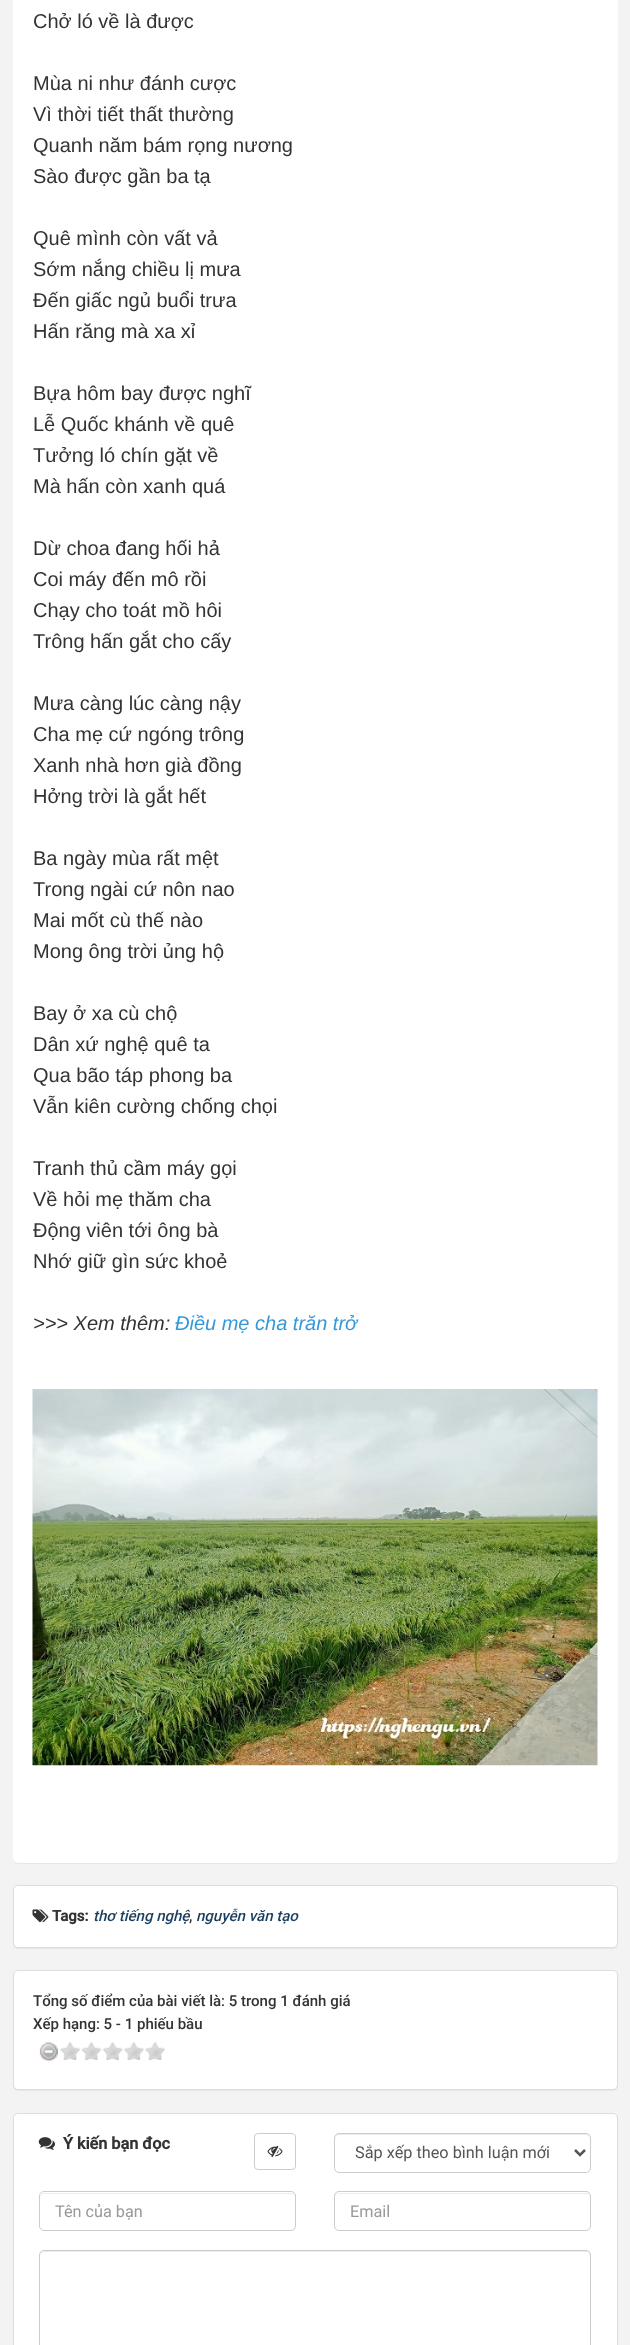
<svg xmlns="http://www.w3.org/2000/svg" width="630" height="2345">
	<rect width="100%" height="100%" fill="#F3F3F3" />
	<rect x="13" y="-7" width="605" height="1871" rx="5" fill="#000000" fill-opacity="0.05" filter="blur(0.5px)" />
	<rect x="13" y="-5" width="605" height="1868" rx="5" fill="#FFFFFF" />
	<g font-family="Liberation Sans" font-size="20" fill="#333333">
		<text x="33" y="28">Chở ló về là được</text>
		<text x="33" y="90">Mùa ni như đánh cược</text>
		<text x="33" y="121">Vì thời tiết thất thường</text>
		<text x="33" y="152">Quanh năm bám rọng nương</text>
		<text x="33" y="183">Sào được gần ba tạ</text>
		<text x="33" y="245">Quê mình còn vất vả</text>
		<text x="33" y="276">Sớm nắng chiều lị mưa</text>
		<text x="33" y="307">Đến giấc ngủ buổi trưa</text>
		<text x="33" y="338">Hấn răng mà xa xỉ</text>
		<text x="33" y="400">Bựa hôm bay được nghĩ</text>
		<text x="33" y="431">Lễ Quốc khánh về quê</text>
		<text x="33" y="462">Tưởng ló chín gặt về</text>
		<text x="33" y="493">Mà hấn còn xanh quá</text>
		<text x="33" y="555">Dừ choa đang hối hả</text>
		<text x="33" y="586">Coi máy đến mô rồi</text>
		<text x="33" y="617">Chạy cho toát mồ hôi</text>
		<text x="33" y="648">Trông hấn gắt cho cấy</text>
		<text x="33" y="710">Mưa càng lúc càng nậy</text>
		<text x="33" y="741">Cha mẹ cứ ngóng trông</text>
		<text x="33" y="772">Xanh nhà hơn già đồng</text>
		<text x="33" y="803">Hởng trời là gắt hết</text>
		<text x="33" y="865">Ba ngày mùa rất mệt</text>
		<text x="33" y="896">Trong ngài cứ nôn nao</text>
		<text x="33" y="927">Mai mốt cù thế nào</text>
		<text x="33" y="958">Mong ông trời ủng hộ</text>
		<text x="33" y="1020">Bay ở xa cù chộ</text>
		<text x="33" y="1051">Dân xứ nghệ quê ta</text>
		<text x="33" y="1082">Qua bão táp phong ba</text>
		<text x="33" y="1113">Vẫn kiên cường chống chọi</text>
		<text x="33" y="1175">Tranh thủ cầm máy gọi</text>
		<text x="33" y="1206">Về hỏi mẹ thăm cha</text>
		<text x="33" y="1237">Động viên tới ông bà</text>
		<text x="33" y="1268">Nhớ giữ gìn sức khoẻ</text>
	</g>
	<text x="33" y="1330" font-family="Liberation Sans" font-size="20" font-style="italic" fill="#333333">&gt;&gt;&gt; Xem thêm:</text>
	<text x="175" y="1330" font-family="Liberation Sans" font-size="20" font-style="italic" fill="#3498DB">Điều mẹ cha trăn trở</text>
	<image x="32" y="1389" width="566" height="377" href="assets/img1.png" />
	<rect x="13" y="1886" width="605" height="63" rx="5" fill="#000000" fill-opacity="0.05" filter="blur(0.5px)" />
	<rect x="13.5" y="1885.5" width="604" height="62" rx="4.5" fill="#FFFFFF" stroke="#DDDDDD" />
	<image x="32" y="1909" width="17" height="14" href="assets/img2.png" />
	<text x="52" y="1921" font-family="Roboto" font-size="15" font-weight="700" fill="#333333">Tags:</text>
	<text x="93" y="1921" font-family="Roboto" font-size="15" font-weight="500" font-style="italic" fill="#1A3F5E">thơ tiếng nghệ</text>
	<text x="189" y="1921" font-family="Roboto" font-size="15" font-weight="500" fill="#333333">,</text>
	<text x="196" y="1921" font-family="Roboto" font-size="15" font-weight="500" font-style="italic" fill="#1A3F5E">nguyễn văn tạo</text>
	<rect x="13" y="1971" width="605" height="120" rx="5" fill="#000000" fill-opacity="0.05" filter="blur(0.5px)" />
	<rect x="13.5" y="1970.5" width="604" height="119" rx="4.5" fill="#FFFFFF" stroke="#DDDDDD" />
	<g font-family="Roboto" font-size="15" font-weight="500" fill="#333333">
		<text x="33" y="2006">Tổng số điểm của bài viết là: 5 trong 1 đánh giá</text>
		<text x="33" y="2029">Xếp hạng: 5 - 1 phiếu bầu</text>
	</g>
	<image x="39" y="2042" width="19" height="19" href="assets/img3.png" />
	<image x="40" y="2042" width="18" height="19" href="assets/img4.png" />
	<image x="60" y="2041" width="20" height="19" href="assets/img5.png" />
	<image x="81" y="2041" width="21" height="19" href="assets/img6.png" />
	<image x="102" y="2042" width="21" height="18" href="assets/img7.png" />
	<image x="124" y="2042" width="20" height="18" href="assets/img8.png" />
	<image x="145" y="2041" width="20" height="19" href="assets/img5.png" />
	<rect x="13.5" y="2113.5" width="604" height="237" rx="4.5" fill="#FFFFFF" stroke="#DDDDDD" />
	<image x="38" y="2137" width="17" height="13" href="assets/img9.png" />
	<text x="63" y="2149" font-family="Roboto" font-size="16.25" font-weight="700" fill="#333333">Ý kiến bạn đọc</text>
	<rect x="254.5" y="2133.5" width="41" height="36" rx="3.5" fill="none" stroke="#CCCCCC" />
	<image x="267" y="2145" width="16" height="12" href="assets/img10.png" />
	<path d="M339 2135H586C588 2135 590 2137 590 2139V2138C590 2136 588 2134 586 2134H339C337 2134 335 2136 335 2138V2139C335 2137 337 2135 339 2135Z" fill="#ECECEC" />
	<rect x="334.5" y="2133.5" width="256" height="39" rx="4.5" fill="none" stroke="#CCCCCC" />
	<path d="M575 2150L580 2155L585 2150" fill="none" stroke="#555555" stroke-width="2.5" />
	<text x="355" y="2158" font-family="Roboto" font-size="16.25" fill="#555555">Sắp xếp theo bình luận mới</text>
	<path d="M44 2194H291C293 2194 295 2195 295 2198V2197C295 2195 293 2193 291 2193H44C42 2193 40 2195 40 2197V2198C40 2195 42 2194 44 2194Z" fill="#ECECEC" />
	<rect x="39.5" y="2191.5" width="256" height="39" rx="4.5" fill="none" stroke="#CCCCCC" />
	<text x="55" y="2217" font-family="Roboto" font-size="16.25" fill="#999999">Tên của bạn</text>
	<path d="M339 2194H586C588 2194 590 2195 590 2198V2197C590 2195 588 2193 586 2193H339C337 2193 335 2195 335 2197V2198C335 2195 337 2194 339 2194Z" fill="#ECECEC" />
	<rect x="334.5" y="2191.5" width="256" height="39" rx="4.5" fill="none" stroke="#CCCCCC" />
	<text x="350" y="2217" font-family="Roboto" font-size="16.25" fill="#999999">Email</text>
	<path d="M44 2252H586C588 2252 590 2254 590 2256V2255C590 2253 588 2251 586 2251H44C42 2251 40 2253 40 2255V2256C40 2254 42 2252 44 2252Z" fill="#ECECEC" />
	<rect x="39.5" y="2250.5" width="551" height="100" rx="4.5" fill="none" stroke="#CCCCCC" />
</svg>
